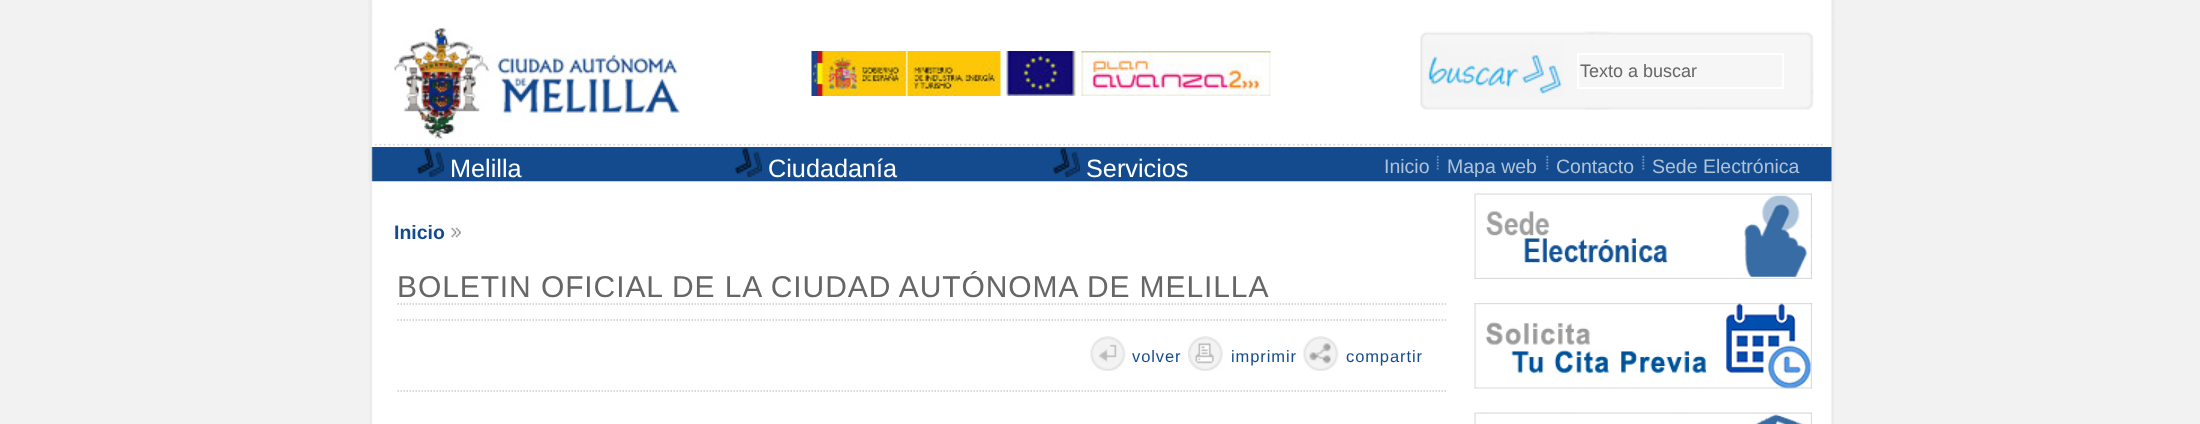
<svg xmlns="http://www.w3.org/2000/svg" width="2200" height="424">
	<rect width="100%" height="100%" fill="#F2F2F2" />
	<image x="368" y="0" width="1467" height="147" href="assets/img1.png" />
	<image x="394" y="28" width="286" height="112" href="assets/img2.png" />
	<image x="811" y="51" width="190" height="45" href="assets/img3.png" />
	<image x="1006" y="51" width="70" height="45" href="assets/img4.png" />
	<image x="1081" y="51" width="190" height="45" href="assets/img5.png" />
	<image x="1420" y="31" width="394" height="79" href="assets/img6.png" />
	<rect x="1578" y="54" width="205" height="34" fill="none" stroke="#FFFFFF" stroke-width="2" />
	<text x="1580" y="77" font-family="Liberation Sans" font-size="18" fill="#666666">Texto a buscar</text>
	<image x="368" y="147" width="1467" height="35" href="assets/img7.png" />
	<image x="417" y="148" width="27" height="29" href="assets/img8.png" />
	<text x="450" y="177" font-family="Liberation Sans" font-size="25.25" fill="#FFFFFF">Melilla</text>
	<image x="735" y="148" width="27" height="29" href="assets/img8.png" />
	<text x="768" y="177" font-family="Liberation Sans" font-size="25.25" fill="#FFFFFF">Ciudadanía</text>
	<image x="1053" y="148" width="27" height="29" href="assets/img8.png" />
	<text x="1086" y="177" font-family="Liberation Sans" font-size="25.25" fill="#FFFFFF">Servicios</text>
	<text x="1384" y="173" font-family="Liberation Sans" font-size="19.5" fill="#AEC3D8">Inicio</text>
	<image x="1436" y="155" width="3" height="15" href="assets/img9.png" />
	<text x="1447" y="173" font-family="Liberation Sans" font-size="19.5" fill="#AEC3D8">Mapa web</text>
	<image x="1546" y="155" width="3" height="15" href="assets/img10.png" />
	<text x="1556" y="173" font-family="Liberation Sans" font-size="19.5" fill="#AEC3D8">Contacto</text>
	<image x="1642" y="155" width="3" height="15" href="assets/img10.png" />
	<text x="1652" y="173" font-family="Liberation Sans" font-size="19.5" fill="#AEC3D8">Sede Electrónica</text>
	<image x="369" y="181" width="1465" height="243" href="assets/img11.png" />
	<text x="394" y="239" font-family="Liberation Sans" font-size="19.5" font-weight="700" fill="#144B8E">Inicio</text>
	<image x="451" y="227" width="10" height="11" href="assets/img12.png" />
	<path d="M397.5 304H1446" fill="none" stroke="#CCCCCC" stroke-width="1.5" stroke-dasharray="1.5 1.5" />
	<text x="397" y="297" font-family="Liberation Sans" font-size="30" letter-spacing="0.9" fill="#666666">BOLETIN OFICIAL DE LA CIUDAD AUTÓNOMA DE MELILLA</text>
	<path d="M397.5 320H1446" fill="none" stroke="#CCCCCC" stroke-width="1.5" stroke-dasharray="1.5 1.5" />
	<path d="M397.5 391H1446" fill="none" stroke="#CCCCCC" stroke-width="1.5" stroke-dasharray="1.5 1.5" />
	<image x="1090" y="336" width="36" height="35" href="assets/img13.png" />
	<text x="1132" y="362" font-family="Liberation Sans" font-size="16.5" letter-spacing="0.9" fill="#144B8E">volver</text>
	<image x="1188" y="336" width="35" height="35" href="assets/img14.png" />
	<text x="1231" y="362" font-family="Liberation Sans" font-size="16.5" letter-spacing="0.9" fill="#144B8E">imprimir</text>
	<image x="1303" y="336" width="36" height="35" href="assets/img15.png" />
	<text x="1346" y="362" font-family="Liberation Sans" font-size="16.5" letter-spacing="0.9" fill="#144B8E">compartir</text>
	<image x="1474" y="193" width="338" height="86" href="assets/img16.png" />
	<image x="1474" y="303" width="338" height="86" href="assets/img17.png" />
	<image x="1474" y="412" width="338" height="12" href="assets/img18.png" />
</svg>
